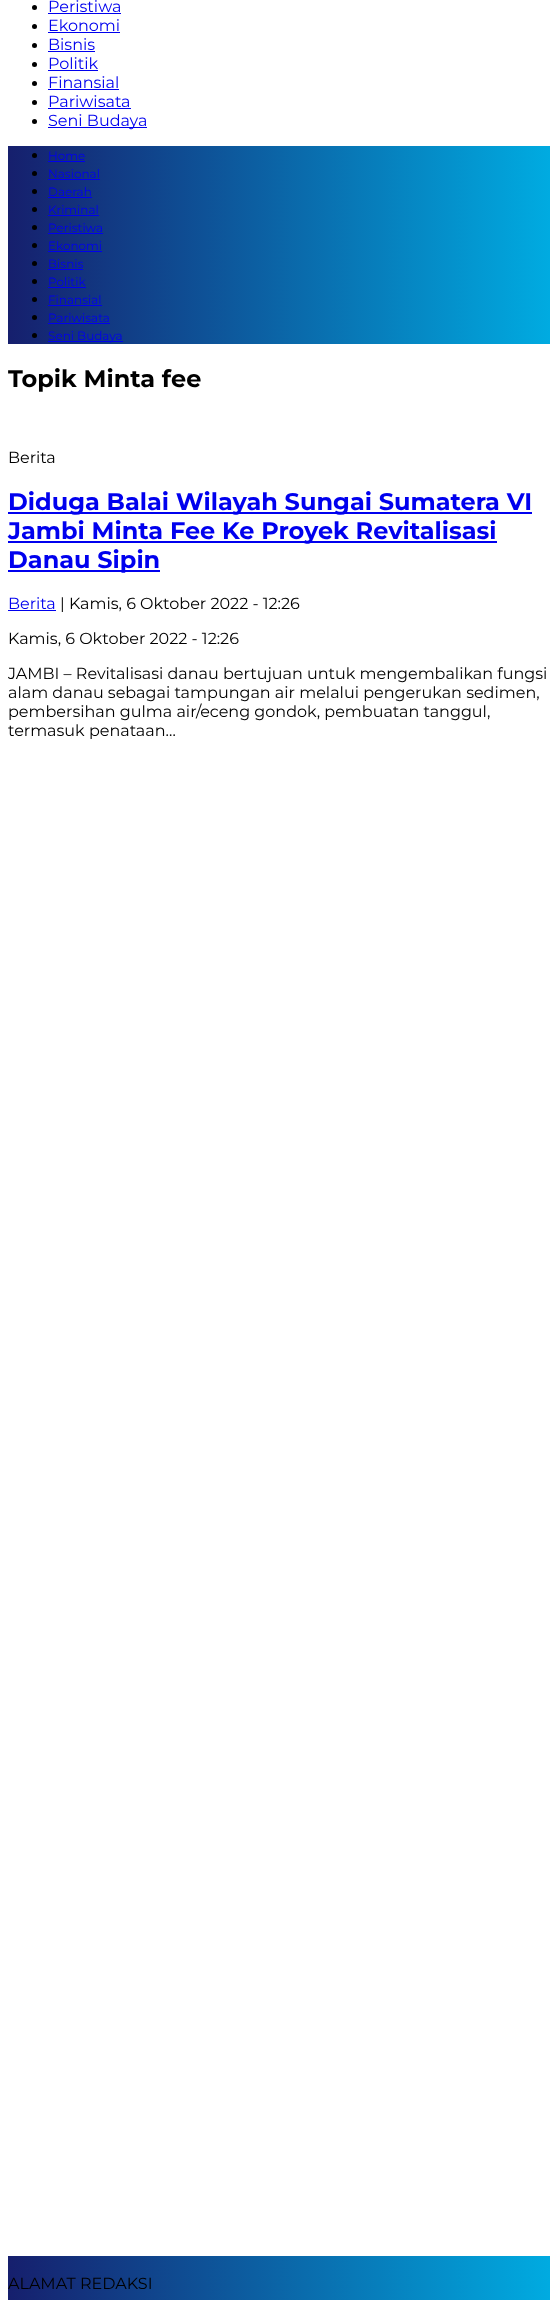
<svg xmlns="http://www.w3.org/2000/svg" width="558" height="2300">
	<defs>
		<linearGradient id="g1" gradientUnits="userSpaceOnUse" x1="8" y1="245" x2="550" y2="245"><stop offset="0" stop-color="#161F6D" /><stop offset="1" stop-color="#00ABE1" /></linearGradient>
		<linearGradient id="g2" gradientUnits="userSpaceOnUse" x1="8" y1="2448" x2="550" y2="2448"><stop offset="0" stop-color="#161F6D" /><stop offset="1" stop-color="#00ABE1" /></linearGradient>
	</defs>
	<rect width="100%" height="100%" fill="#FFFFFF" />
	<circle cx="34.5" cy="7.5" r="2.5" fill="#000000" />
	<text x="48" y="12" font-family="Montserrat" font-size="16" fill="#0000EE">Peristiwa</text>
	<rect x="48" y="13" width="73" height="1" fill="#0000EE" />
	<circle cx="34.5" cy="26.5" r="2.5" fill="#000000" />
	<text x="48" y="31" font-family="Montserrat" font-size="16" fill="#0000EE">Ekonomi</text>
	<rect x="48" y="32" width="72" height="1" fill="#0000EE" />
	<circle cx="34.5" cy="45.5" r="2.5" fill="#000000" />
	<text x="48" y="50" font-family="Montserrat" font-size="16" fill="#0000EE">Bisnis</text>
	<rect x="48" y="51" width="47" height="1" fill="#0000EE" />
	<circle cx="34.5" cy="64.5" r="2.5" fill="#000000" />
	<text x="48" y="69" font-family="Montserrat" font-size="16" fill="#0000EE">Politik</text>
	<rect x="48" y="70" width="50" height="1" fill="#0000EE" />
	<circle cx="34.5" cy="83.5" r="2.5" fill="#000000" />
	<text x="48" y="88" font-family="Montserrat" font-size="16" fill="#0000EE">Finansial</text>
	<rect x="48" y="89" width="71" height="1" fill="#0000EE" />
	<circle cx="34.5" cy="102.5" r="2.5" fill="#000000" />
	<text x="48" y="107" font-family="Montserrat" font-size="16" fill="#0000EE">Pariwisata</text>
	<rect x="48" y="108" width="83" height="1" fill="#0000EE" />
	<circle cx="34.5" cy="121.5" r="2.5" fill="#000000" />
	<rect x="48" y="127" width="99" height="1" fill="#0000EE" />
	<text x="48" y="126" font-family="Montserrat" font-size="16" fill="#0000EE">Seni Budaya</text>
	<rect x="8" y="146" width="542" height="198" fill="url(#g1)" />
	<circle cx="34.5" cy="155.5" r="2.5" fill="#000000" />
	<text x="48" y="160" font-family="Montserrat" font-size="12" fill="#0000EE">Home</text>
	<rect x="48" y="161" width="37" height="1" fill="#0000EE" />
	<circle cx="34.5" cy="173.5" r="2.5" fill="#000000" />
	<text x="48" y="178" font-family="Montserrat" font-size="12" fill="#0000EE">Nasional</text>
	<rect x="48" y="179" width="52" height="1" fill="#0000EE" />
	<circle cx="34.5" cy="191.5" r="2.5" fill="#000000" />
	<text x="48" y="196" font-family="Montserrat" font-size="12" fill="#0000EE">Daerah</text>
	<rect x="48" y="197" width="44" height="1" fill="#0000EE" />
	<circle cx="34.5" cy="209.5" r="2.5" fill="#000000" />
	<text x="48" y="214" font-family="Montserrat" font-size="12" fill="#0000EE">Kriminal</text>
	<rect x="48" y="215" width="51" height="1" fill="#0000EE" />
	<circle cx="34.5" cy="227.5" r="2.5" fill="#000000" />
	<text x="48" y="232" font-family="Montserrat" font-size="12" fill="#0000EE">Peristiwa</text>
	<rect x="48" y="233" width="55" height="1" fill="#0000EE" />
	<circle cx="34.5" cy="245.5" r="2.5" fill="#000000" />
	<text x="48" y="250" font-family="Montserrat" font-size="12" fill="#0000EE">Ekonomi</text>
	<rect x="48" y="251" width="54" height="1" fill="#0000EE" />
	<circle cx="34.5" cy="263.5" r="2.5" fill="#000000" />
	<text x="48" y="268" font-family="Montserrat" font-size="12" fill="#0000EE">Bisnis</text>
	<rect x="48" y="269" width="35" height="1" fill="#0000EE" />
	<circle cx="34.5" cy="281.5" r="2.5" fill="#000000" />
	<text x="48" y="286" font-family="Montserrat" font-size="12" fill="#0000EE">Politik</text>
	<rect x="48" y="287" width="38" height="1" fill="#0000EE" />
	<circle cx="34.5" cy="299.5" r="2.5" fill="#000000" />
	<text x="48" y="304" font-family="Montserrat" font-size="12" fill="#0000EE">Finansial</text>
	<rect x="48" y="305" width="54" height="1" fill="#0000EE" />
	<circle cx="34.5" cy="317.5" r="2.5" fill="#000000" />
	<text x="48" y="322" font-family="Montserrat" font-size="12" fill="#0000EE">Pariwisata</text>
	<rect x="48" y="323" width="62" height="1" fill="#0000EE" />
	<circle cx="34.5" cy="335.5" r="2.5" fill="#000000" />
	<rect x="48" y="341" width="75" height="1" fill="#0000EE" />
	<text x="48" y="340" font-family="Montserrat" font-size="12" fill="#0000EE">Seni Budaya</text>
	<text x="8" y="387" font-family="Montserrat" font-size="24" font-weight="700" fill="#000000">Topik Minta fee</text>
	<text x="8" y="463" font-family="Montserrat" font-size="16" fill="#000000">Berita</text>
	<rect x="8" y="512" width="524" height="2" fill="#0000EE" />
	<text x="8" y="510" font-family="Montserrat" font-size="24" font-weight="700" fill="#0000EE">Diduga Balai Wilayah Sungai Sumatera VI</text>
	<rect x="8" y="541" width="489" height="2" fill="#0000EE" />
	<text x="8" y="539" font-family="Montserrat" font-size="24" font-weight="700" fill="#0000EE">Jambi Minta Fee Ke Proyek Revitalisasi</text>
	<rect x="8" y="570" width="152" height="2" fill="#0000EE" />
	<text x="8" y="568" font-family="Montserrat" font-size="24" font-weight="700" fill="#0000EE">Danau Sipin</text>
	<text x="8" y="609" font-family="Montserrat" font-size="16" fill="#0000EE">Berita</text>
	<rect x="8" y="610" width="48" height="1" fill="#0000EE" />
	<g font-family="Montserrat" font-size="16" fill="#000000">
		<text x="60" y="609">| Kamis, 6 Oktober 2022 - 12:26</text>
		<text x="8" y="644">Kamis, 6 Oktober 2022 - 12:26</text>
		<text x="8" y="679">JAMBI – Revitalisasi danau bertujuan untuk mengembalikan fungsi</text>
		<text x="8" y="698">alam danau sebagai tampungan air melalui pengerukan sedimen,</text>
		<text x="8" y="717">pembersihan gulma air/eceng gondok, pembuatan tanggul,</text>
		<text x="8" y="736">termasuk penataan…</text>
	</g>
	<rect x="8" y="2256" width="542" height="44" fill="url(#g2)" />
	<text x="8" y="2289" font-family="Montserrat" font-size="16" fill="#000000">ALAMAT REDAKSI</text>
</svg>
